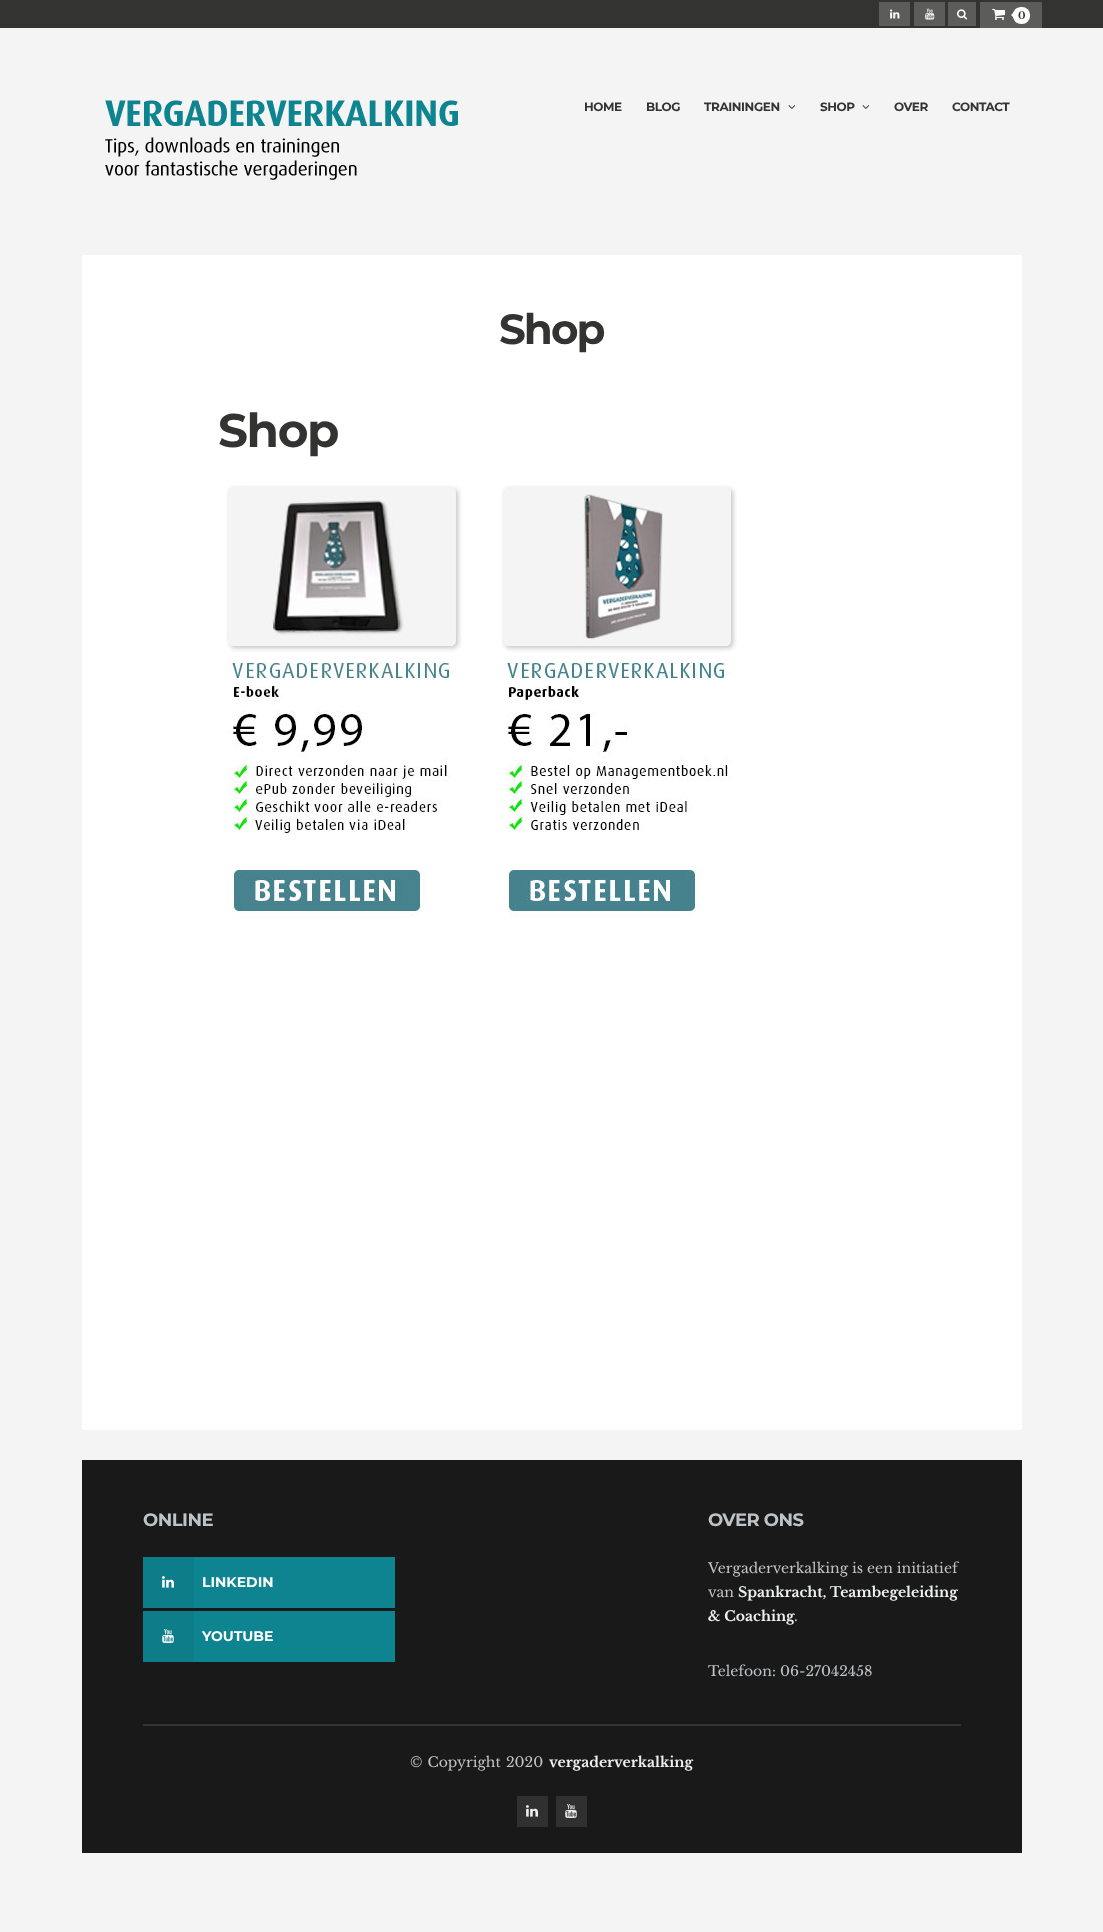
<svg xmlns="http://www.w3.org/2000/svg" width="1103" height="1932">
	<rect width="100%" height="100%" fill="#F4F4F4" />
	<rect x="0" y="0" width="1103" height="28" fill="#333332" />
	<rect x="879" y="2" width="31" height="24" fill="#5C5C5B" />
	<image x="890" y="9" width="10" height="10" href="assets/img1.png" />
	<rect x="914" y="2" width="31" height="24" fill="#5C5C5B" />
	<image x="925" y="8" width="10" height="12" href="assets/img2.png" />
	<rect x="948" y="2" width="28" height="24" fill="#5C5C5B" />
	<image x="957" y="9" width="11" height="11" href="assets/img3.png" />
	<rect x="980" y="2" width="62" height="26" fill="#5C5C5B" />
	<image x="992" y="9" width="13" height="11" href="assets/img4.png" />
	<rect x="1013" y="7" width="17" height="17" rx="8" fill="#FFFFFF" />
	<path d="M1014 12V18L1011 15Z" fill="#FFFFFF" />
	<text x="1018" y="19" font-family="Libre Baskerville" font-size="10" font-weight="700" fill="#333332">0</text>
	<image x="105" y="100" width="353" height="80" href="assets/img5.png" />
	<g font-family="Montserrat" font-size="12" font-weight="700" letter-spacing="-0.4" fill="#333332">
		<text x="584" y="111">HOME</text>
		<text x="646" y="111">BLOG</text>
		<text x="704" y="111">TRAININGEN</text>
	</g>
	<image x="788" y="105" width="8" height="4" href="assets/img6.png" />
	<text x="820" y="111" font-family="Montserrat" font-size="12" font-weight="700" letter-spacing="-0.4" fill="#333332">SHOP</text>
	<image x="862" y="105" width="8" height="4" href="assets/img6.png" />
	<g font-family="Montserrat" font-size="12" font-weight="700" letter-spacing="-0.4" fill="#333332">
		<text x="894" y="111">OVER</text>
		<text x="952" y="111">CONTACT</text>
	</g>
	<rect x="82" y="255" width="940" height="1175" fill="#FFFFFF" />
	<text x="499" y="344" font-family="Montserrat" font-size="42" font-weight="700" letter-spacing="-2" fill="#333332">Shop</text>
	<text x="218" y="447" font-family="Montserrat" font-size="47" font-weight="700" letter-spacing="-1.5" fill="#333332">Shop</text>
	<image x="226" y="485" width="236" height="433" href="assets/img7.png" />
	<image x="501" y="485" width="236" height="433" href="assets/img8.png" />
	<rect x="82" y="1460" width="940" height="393" fill="#1A1919" />
	<text x="143" y="1526" font-family="Montserrat" font-size="18" font-weight="700" letter-spacing="-0.5" fill="#BDC3C7">ONLINE</text>
	<rect x="194" y="1557" width="201" height="51" fill="#0D8490" />
	<rect x="143" y="1557" width="51" height="51" fill="#0C7D89" />
	<image x="162" y="1576" width="12" height="12" href="assets/img9.png" />
	<text x="202" y="1587" font-family="Montserrat" font-size="14" font-weight="700" fill="#FFFFFF">LINKEDIN</text>
	<rect x="194" y="1611" width="201" height="51" fill="#0D8490" />
	<rect x="143" y="1611" width="51" height="51" fill="#0C7D89" />
	<image x="162" y="1629" width="12" height="14" href="assets/img10.png" />
	<text x="202" y="1641" font-family="Montserrat" font-size="14" font-weight="700" fill="#FFFFFF">YOUTUBE</text>
	<text x="708" y="1526" font-family="Montserrat" font-size="18" font-weight="700" letter-spacing="-0.5" fill="#BDC3C7">OVER ONS</text>
	<g font-family="Libre Baskerville" font-size="14" fill="#BDC3C7">
		<text x="708" y="1573">Vergaderverkalking is een initiatief</text>
		<text x="708" y="1597">van</text>
	</g>
	<g font-family="Libre Baskerville" font-size="14" font-weight="700" fill="#ECF0F1">
		<text x="738" y="1597">Spankracht, Teambegeleiding</text>
		<text x="708" y="1621">&amp; Coaching</text>
	</g>
	<g font-family="Libre Baskerville" font-size="14" fill="#BDC3C7">
		<text x="794" y="1621">.</text>
		<text x="708" y="1676">Telefoon: 06-27042458</text>
	</g>
	<rect x="143" y="1724" width="818" height="2" fill="#343434" />
	<g font-family="Libre Baskerville" font-size="14" fill="#BDC3C7">
		<text x="410" y="1767" word-spacing="1">© Copyright</text>
		<text x="506" y="1767">2020</text>
	</g>
	<text x="549" y="1767" font-family="Libre Baskerville" font-size="14" font-weight="700" fill="#ECF0F1">vergaderverkalking</text>
	<rect x="517" y="1796" width="31" height="31" fill="#313030" />
	<image x="526" y="1805" width="12" height="12" href="assets/img11.png" />
	<rect x="556" y="1796" width="31" height="31" fill="#313030" />
	<image x="565" y="1804" width="12" height="14" href="assets/img12.png" />
</svg>
